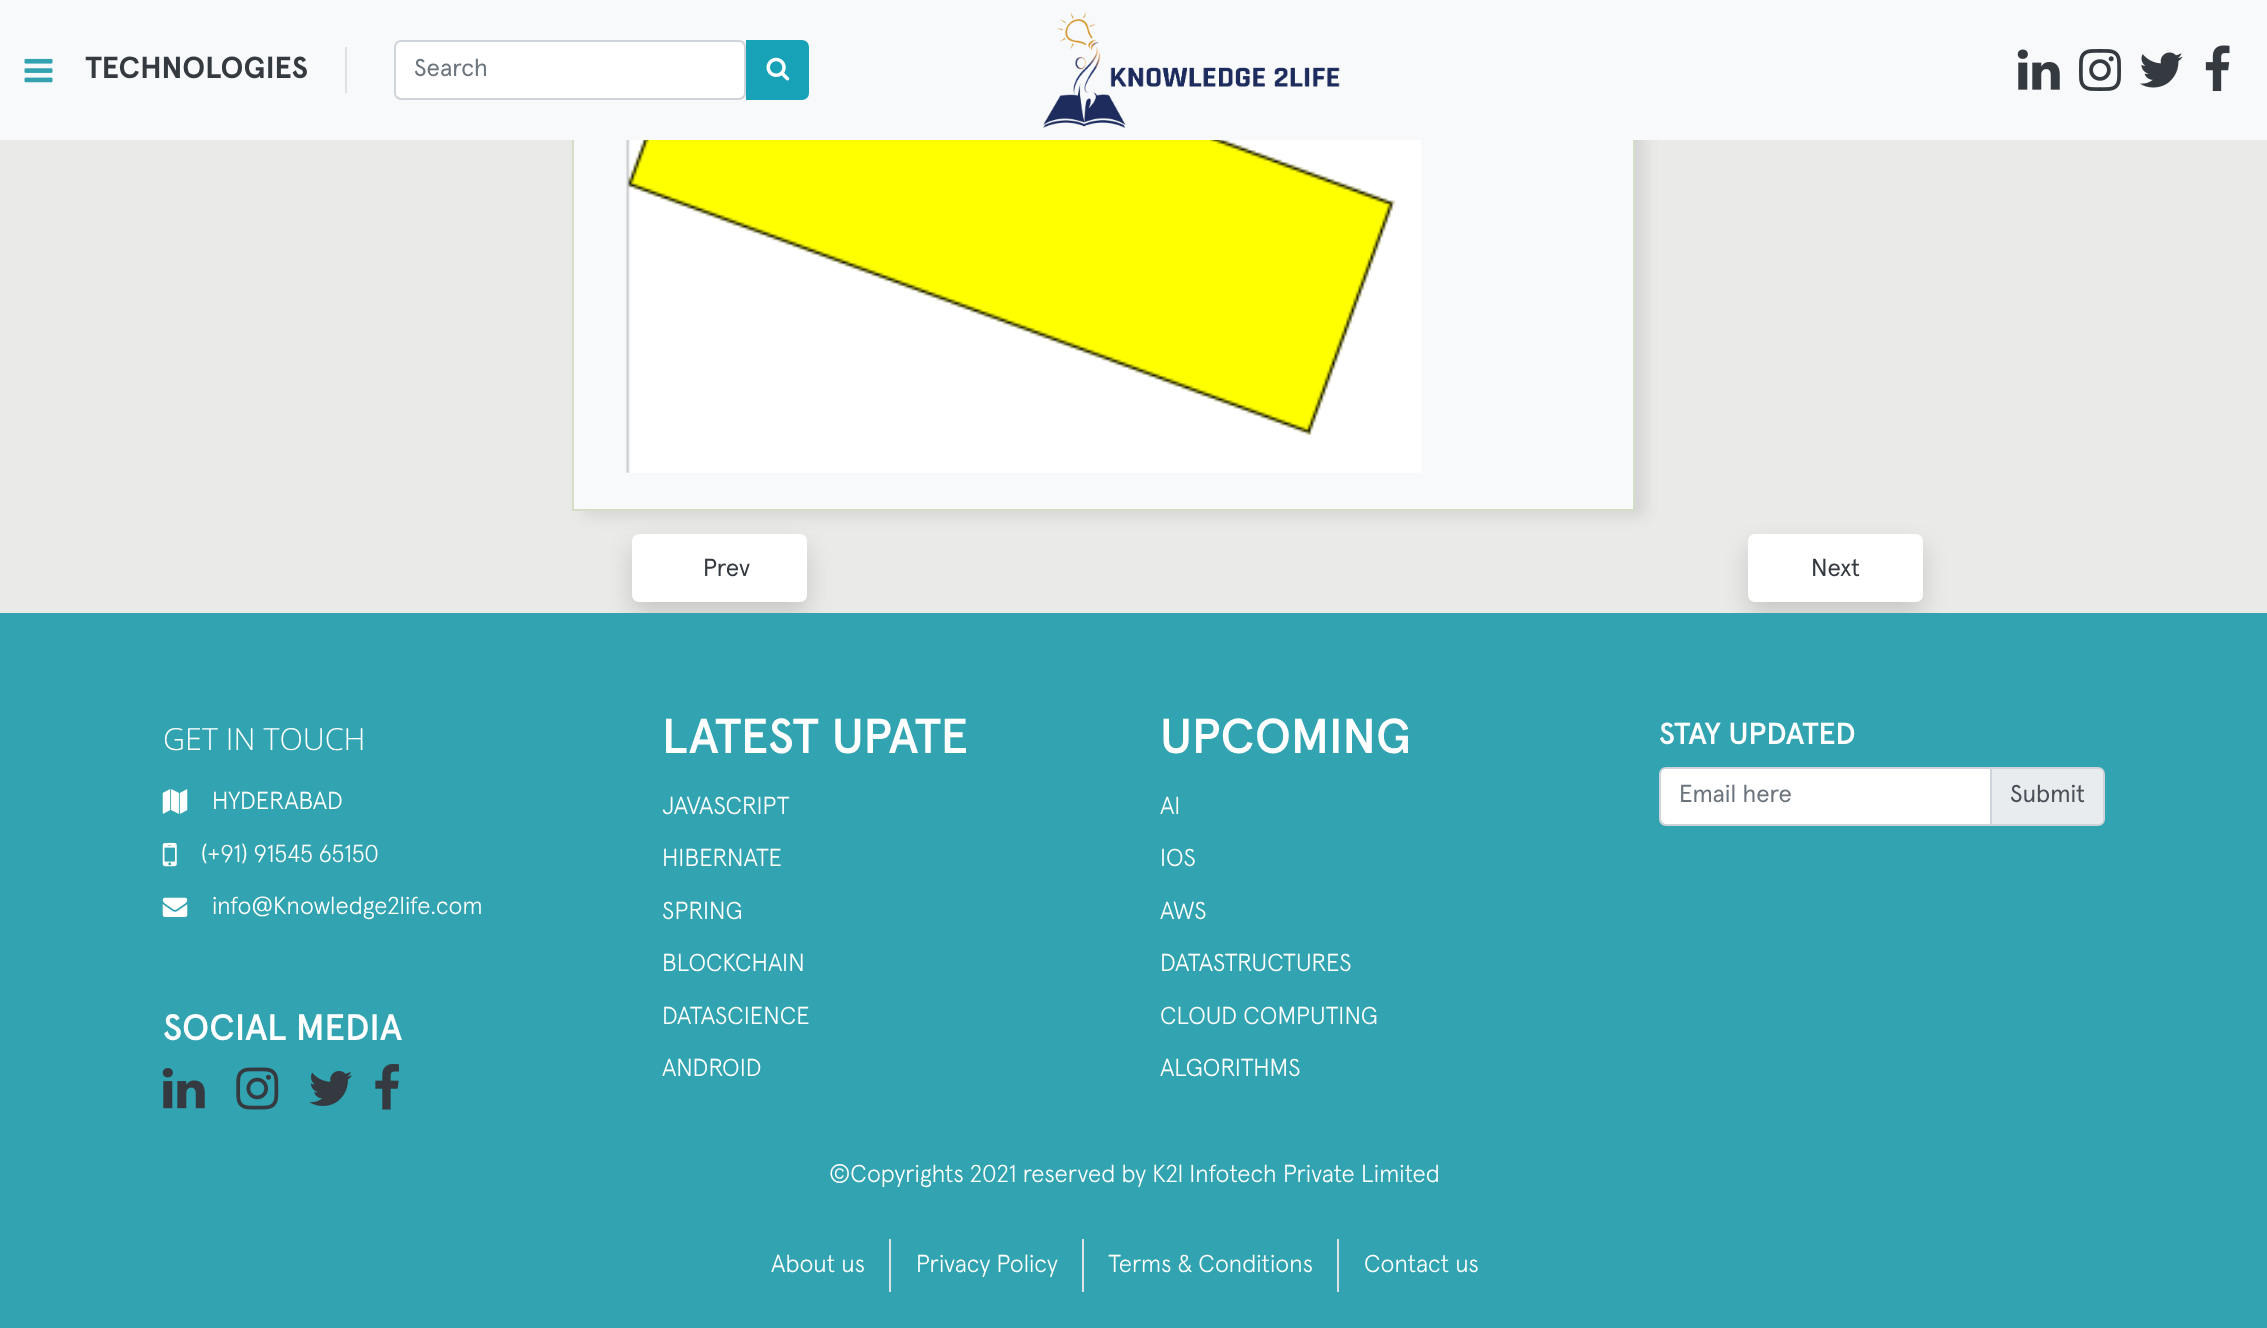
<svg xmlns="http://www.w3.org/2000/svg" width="2267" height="1328">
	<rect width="100%" height="100%" fill="#EAEAE8" />
	<rect x="583" y="-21" width="1062" height="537" fill="#D4D4D4" filter="blur(7px)" />
	<rect x="574" y="140" width="1059" height="369" fill="#F8F9FA" />
	<rect x="573" y="-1" width="1061" height="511" fill="none" stroke="#D5DDC6" stroke-width="2" />
	<rect x="0" y="0" width="2267" height="140" fill="#F8F9FA" />
	<rect x="345" y="47" width="2" height="46" fill="#DEE2E6" />
	<image x="24" y="58" width="29" height="25" href="assets/img1.png" />
	<text x="85" y="78" font-family="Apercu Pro" font-size="30.5" font-weight="700" fill="#343A40">TECHNOLOGIES</text>
	<rect x="396" y="42" width="348" height="56" rx="4" fill="#FFFFFF" />
	<rect x="395" y="41" width="350" height="58" rx="6" fill="none" stroke="#CED4DA" stroke-width="2" />
	<text x="414" y="76" font-family="Apercu Pro" font-size="24.5" fill="#6C757D">Search</text>
	<path d="M747 41H802C805.5 41 808 43.5 808 47V93C808 96.5 805.5 99 802 99H747Z" fill="#17A2B8" stroke="#17A2B8" stroke-width="2" />
	<image x="766" y="57" width="24" height="24" href="assets/img2.png" />
	<image x="1043" y="12" width="297" height="116" href="assets/img3.png" />
	<image x="2017" y="49" width="43" height="41" href="assets/img4.png" />
	<image x="2079" y="49" width="42" height="42" href="assets/img5.png" />
	<image x="2139" y="52" width="44" height="36" href="assets/img6.png" />
	<image x="2205" y="45" width="25" height="46" href="assets/img7.png" />
	<image x="626" y="140" width="795" height="333" href="assets/img8.png" />
	<rect x="632" y="546" width="175" height="68" rx="7" fill="#000000" fill-opacity="0.15" filter="blur(12px)" />
	<rect x="632" y="534" width="175" height="68" rx="7" fill="#FFFFFF" />
	<text x="703" y="576" font-family="Apercu Pro" font-size="24.5" fill="#343A40">Prev</text>
	<rect x="1748" y="546" width="175" height="68" rx="7" fill="#000000" fill-opacity="0.15" filter="blur(12px)" />
	<rect x="1748" y="534" width="175" height="68" rx="7" fill="#FFFFFF" />
	<text x="1811" y="576" font-family="Apercu Pro" font-size="24.5" fill="#343A40">Next</text>
	<rect x="0" y="613" width="2267" height="715" fill="#32A3B1" />
	<text x="163" y="750" font-family="Open Sans" font-size="30.5" font-weight="300" fill="#FFFFFF">GET IN TOUCH</text>
	<image x="162" y="789" width="26" height="25" href="assets/img9.png" />
	<text x="212" y="809" font-family="Apercu Pro" font-size="24.5" font-weight="300" fill="#FFFFFF">HYDERABAD</text>
	<image x="162" y="842" width="15" height="25" href="assets/img10.png" />
	<text x="201" y="862" font-family="Apercu Pro" font-size="24.5" font-weight="300" fill="#FFFFFF">(+91) 91545 65150</text>
	<image x="162" y="897" width="26" height="20" href="assets/img11.png" />
	<text x="212" y="914" font-family="Apercu Pro" font-size="24.5" font-weight="300" fill="#FFFFFF">info@Knowledge2life.com</text>
	<text x="163" y="1040" font-family="Apercu Pro" font-size="36.75" font-weight="500" fill="#FFFFFF">SOCIAL MEDIA</text>
	<image x="162" y="1068" width="43" height="41" href="assets/img12.png" />
	<image x="236" y="1067" width="43" height="43" href="assets/img13.png" />
	<image x="309" y="1071" width="44" height="35" href="assets/img14.png" />
	<image x="375" y="1064" width="24" height="46" href="assets/img15.png" />
	<text x="662" y="753" font-family="Apercu Pro" font-size="49" font-weight="500" fill="#FFFFFF">LATEST UPATE</text>
	<g font-family="Apercu Pro" font-size="24.5" font-weight="300" fill="#FFFFFF">
		<text x="662" y="814">JAVASCRIPT</text>
		<text x="662" y="866">HIBERNATE</text>
		<text x="662" y="919">SPRING</text>
		<text x="662" y="971">BLOCKCHAIN</text>
		<text x="662" y="1024">DATASCIENCE</text>
		<text x="662" y="1076">ANDROID</text>
	</g>
	<text x="1160" y="753" font-family="Apercu Pro" font-size="49" font-weight="500" fill="#FFFFFF">UPCOMING</text>
	<g font-family="Apercu Pro" font-size="24.5" font-weight="300" fill="#FFFFFF">
		<text x="1160" y="814">AI</text>
		<text x="1160" y="866">IOS</text>
		<text x="1160" y="919">AWS</text>
		<text x="1160" y="971">DATASTRUCTURES</text>
		<text x="1160" y="1024">CLOUD COMPUTING</text>
		<text x="1160" y="1076">ALGORITHMS</text>
	</g>
	<text x="1659" y="744" font-family="Apercu Pro" font-size="30.5" font-weight="500" fill="#FFFFFF">STAY UPDATED</text>
	<path d="M1665 768H1990V824H1665C1663 824 1661 822 1661 820V772C1661 770 1663 768 1665 768Z" fill="#FFFFFF" />
	<path d="M1991 768H2098C2101.5 768 2104 770.5 2104 774V819C2104 822.5 2101.5 825 2098 825H1991Z" fill="#E9ECEF" stroke="#CED4DA" stroke-width="2" />
	<path d="M1666 768H1991V825H1666C1662.5 825 1660 822.5 1660 819V774C1660 770.5 1662.5 768 1666 768Z" fill="none" stroke="#CED4DA" stroke-width="2" />
	<text x="1679" y="802" font-family="Apercu Pro" font-size="24.5" fill="#6C757D">Email here</text>
	<text x="2010" y="802" font-family="Apercu Pro" font-size="24.5" fill="#495057">Submit</text>
	<text x="829" y="1182" font-family="Apercu Pro" font-size="24.5" font-weight="300" fill="#FFFFFF">©Copyrights 2021 reserved by K2l Infotech Private Limited</text>
	<rect x="889" y="1239" width="2" height="53" fill="#DEE2E6" />
	<text x="771" y="1272" font-family="Apercu Pro" font-size="24.5" font-weight="300" fill="#FFFFFF">About us</text>
	<rect x="1082" y="1239" width="2" height="53" fill="#DEE2E6" />
	<text x="916" y="1272" font-family="Apercu Pro" font-size="24.5" font-weight="300" fill="#FFFFFF">Privacy Policy</text>
	<rect x="1337" y="1239" width="2" height="53" fill="#DEE2E6" />
	<g font-family="Apercu Pro" font-size="24.5" font-weight="300" fill="#FFFFFF">
		<text x="1108" y="1272">Terms &amp; Conditions</text>
		<text x="1364" y="1272">Contact us</text>
	</g>
</svg>
